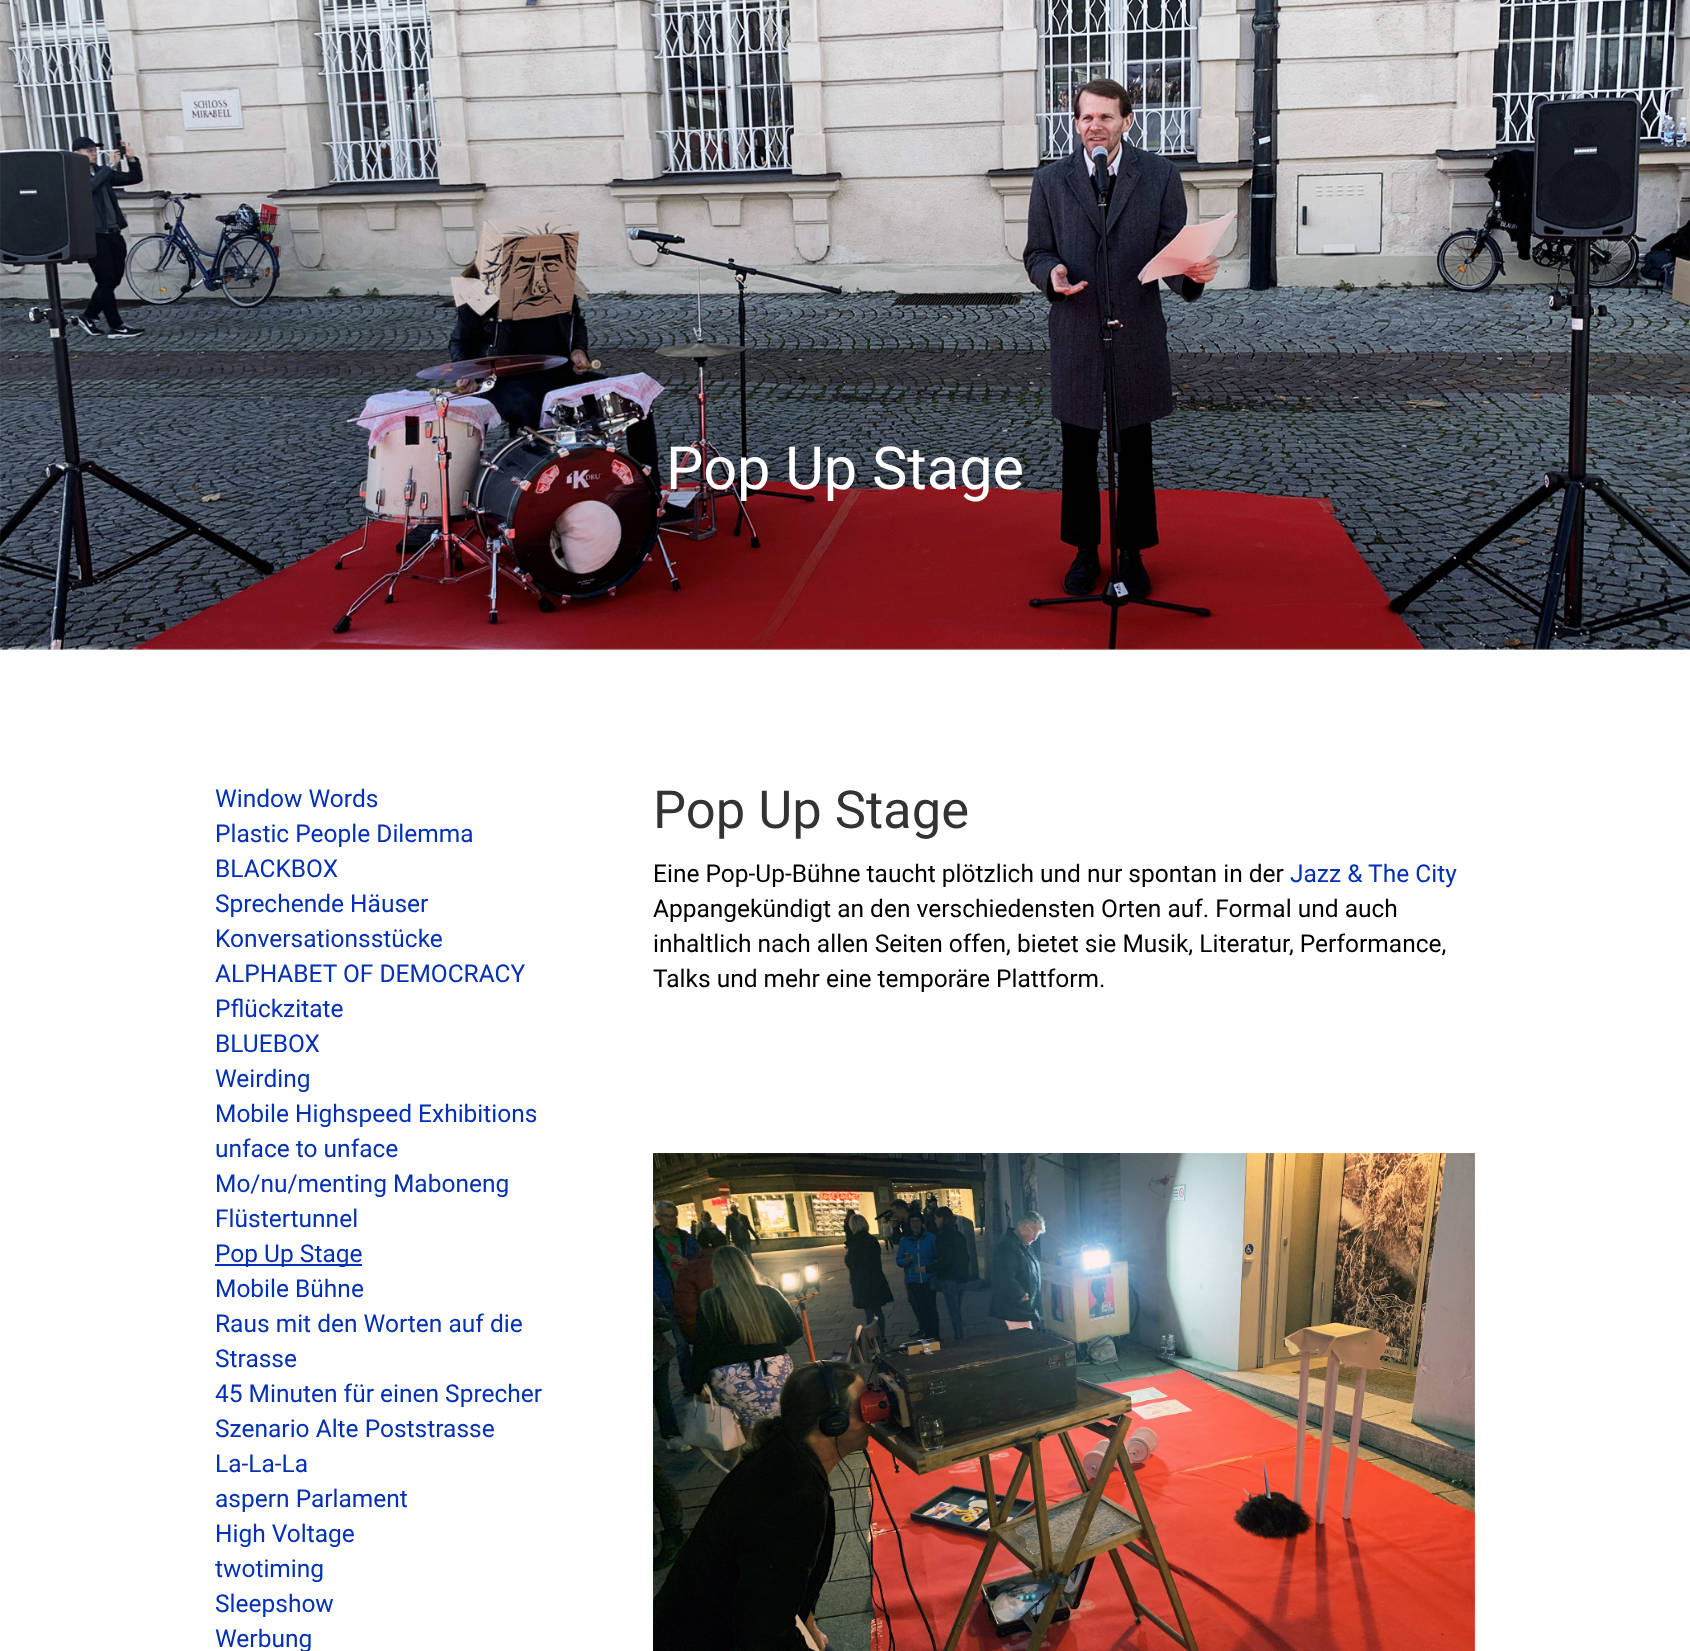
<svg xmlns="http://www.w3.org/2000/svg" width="1690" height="1651">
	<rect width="100%" height="100%" fill="#FFFFFF" />
	<image x="0" y="0" width="1690" height="650" href="assets/img1.png" />
	<text x="666" y="489" font-family="Roboto" font-size="59.5" fill="#FFFFFF">Pop Up Stage</text>
	<g font-family="Roboto" font-size="24.5" fill="#0431B4">
		<text x="215" y="807">Window Words</text>
		<text x="215" y="842">Plastic People Dilemma</text>
		<text x="215" y="877">BLACKBOX</text>
		<text x="215" y="912">Sprechende Häuser</text>
		<text x="215" y="947">Konversationsstücke</text>
		<text x="215" y="982">ALPHABET OF DEMOCRACY</text>
		<text x="215" y="1017">Pflückzitate</text>
		<text x="215" y="1052">BLUEBOX</text>
		<text x="215" y="1087">Weirding</text>
		<text x="215" y="1122">Mobile Highspeed Exhibitions</text>
		<text x="215" y="1157">unface to unface</text>
		<text x="215" y="1192">Mo/nu/menting Maboneng</text>
		<text x="215" y="1227">Flüstertunnel</text>
	</g>
	<rect x="215" y="1264" width="147" height="2" fill="#0431B4" />
	<g font-family="Roboto" font-size="24.5" fill="#0431B4">
		<text x="215" y="1262">Pop Up Stage</text>
		<text x="215" y="1297">Mobile Bühne</text>
		<text x="215" y="1332">Raus mit den Worten auf die</text>
		<text x="215" y="1367">Strasse</text>
		<text x="215" y="1402">45 Minuten für einen Sprecher</text>
		<text x="215" y="1437">Szenario Alte Poststrasse</text>
		<text x="215" y="1472">La-La-La</text>
		<text x="215" y="1507">aspern Parlament</text>
		<text x="215" y="1542">High Voltage</text>
		<text x="215" y="1577">twotiming</text>
		<text x="215" y="1612">Sleepshow</text>
		<text x="215" y="1647">Werbung</text>
	</g>
	<text x="653" y="828" font-family="Roboto" font-size="52.5" fill="#333333">Pop Up Stage</text>
	<text x="653" y="882" font-family="Roboto" font-size="24.5" fill="#000000">Eine Pop-Up-Bühne taucht plötzlich und nur spontan in der</text>
	<text x="1290" y="882" font-family="Roboto" font-size="24.5" fill="#0431B4">Jazz &amp; The City</text>
	<g font-family="Roboto" font-size="24.5" fill="#000000">
		<text x="653" y="917">Appangekündigt an den verschiedensten Orten auf. Formal und auch</text>
		<text x="653" y="952">inhaltlich nach allen Seiten offen, bietet sie Musik, Literatur, Performance,</text>
		<text x="653" y="987">Talks und mehr eine temporäre Plattform.</text>
	</g>
	<image x="653" y="1153" width="822" height="498" href="assets/img2.png" />
</svg>
